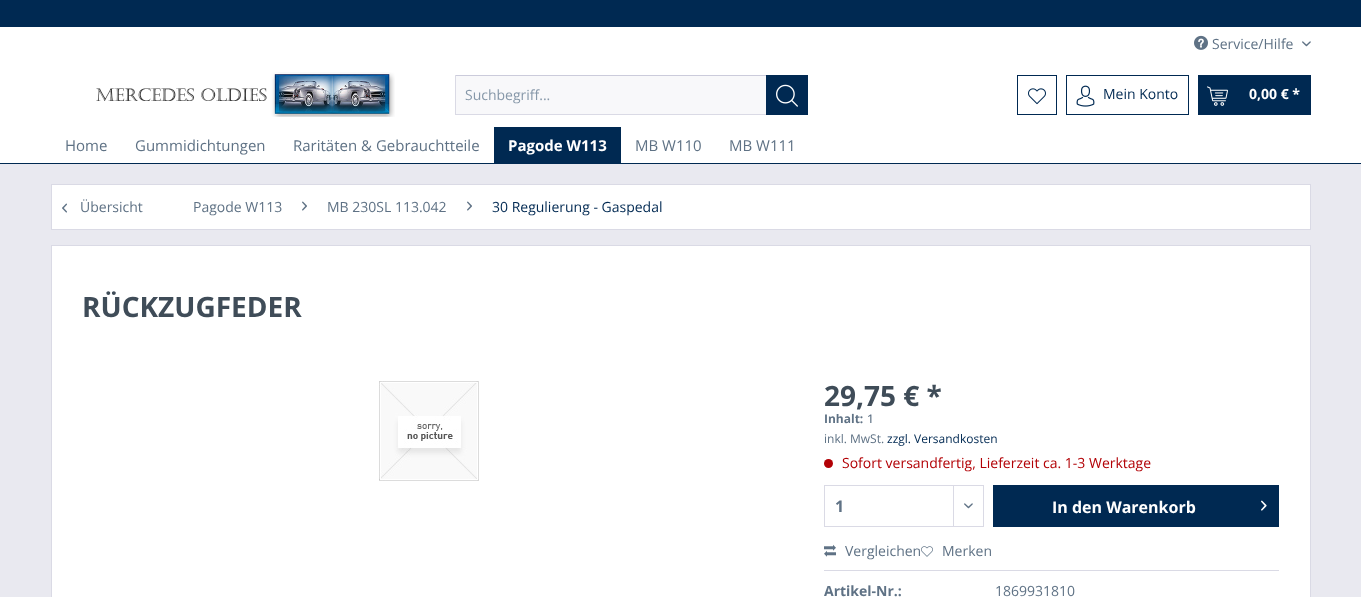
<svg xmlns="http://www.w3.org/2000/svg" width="1361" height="597">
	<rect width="100%" height="100%" fill="#E9E9F0" />
	<rect x="0" y="27" width="1361" height="136" fill="#FFFFFF" />
	<rect x="0" y="0" width="1361" height="27" fill="#002952" />
	<image x="1194" y="35" width="14" height="15" href="assets/img1.png" />
	<text x="1212" y="49" font-family="Open Sans" font-size="14" fill="#5F7285">Service/Hilfe</text>
	<image x="1302" y="41" width="9" height="6" href="assets/img2.png" />
	<image x="96" y="72" width="299" height="45" href="assets/img3.png" />
	<rect x="456" y="76" width="310" height="38" fill="#F8F8FA" />
	<rect x="455" y="75" width="311" height="1" fill="#CBCBDB" />
	<rect x="455" y="114" width="311" height="1" fill="#DADAE5" />
	<rect x="455" y="75" width="1" height="40" fill="#DADAE5" />
	<text x="465" y="100" font-family="Open Sans" font-size="14" fill="#8798A9">Suchbegriff...</text>
	<rect x="766" y="75" width="42" height="40" fill="#002952" />
	<image x="776" y="84" width="22" height="23" href="assets/img4.png" />
	<rect x="1017.5" y="75.5" width="39" height="39" fill="none" stroke="#002952" />
	<image x="1028" y="88" width="18" height="17" href="assets/img5.png" />
	<rect x="1066.5" y="75.5" width="122" height="39" fill="none" stroke="#002952" />
	<image x="1076" y="85" width="19" height="22" href="assets/img6.png" />
	<text x="1103" y="99" font-family="Open Sans" font-size="14" fill="#002952">Mein Konto</text>
	<rect x="1198" y="75" width="113" height="40" fill="#002952" />
	<image x="1207" y="86" width="21" height="20" href="assets/img7.png" />
	<text x="1249" y="99" font-family="Open Sans" font-size="14" font-weight="700" fill="#FFFFFF">0,00 € *</text>
	<rect x="0" y="163" width="1361" height="1" fill="#002952" />
	<g font-family="Open Sans" font-size="15" fill="#5F7285">
		<text x="65" y="151">Home</text>
		<text x="135" y="151">Gummidichtungen</text>
		<text x="293" y="151">Raritäten &amp; Gebrauchtteile</text>
	</g>
	<rect x="494" y="127" width="127" height="36" fill="#002952" />
	<text x="508" y="151" font-family="Open Sans" font-size="15" font-weight="700" fill="#FFFFFF">Pagode W113</text>
	<g font-family="Open Sans" font-size="15" fill="#5F7285">
		<text x="635" y="151">MB W110</text>
		<text x="729" y="151">MB W111</text>
	</g>
	<rect x="51.5" y="184.5" width="1259" height="45" fill="#FFFFFF" stroke="#DADAE5" />
	<image x="62" y="203" width="5" height="10" href="assets/img8.png" />
	<g font-family="Open Sans" font-size="14" fill="#5F7285">
		<text x="80" y="212">Übersicht</text>
		<text x="193" y="212">Pagode W113</text>
	</g>
	<image x="302" y="201" width="5" height="10" href="assets/img9.png" />
	<text x="327" y="212" font-family="Open Sans" font-size="14" fill="#5F7285">MB 230SL 113.042</text>
	<image x="467" y="201" width="5" height="10" href="assets/img9.png" />
	<text x="492" y="212" font-family="Open Sans" font-size="14" fill="#002952">30 Regulierung - Gaspedal</text>
	<rect x="52" y="246" width="1258" height="351" fill="#FFFFFF" />
	<rect x="51" y="245" width="1260" height="1" fill="#DADAE5" />
	<rect x="1310" y="245" width="1" height="352" fill="#DADAE5" />
	<rect x="51" y="245" width="1" height="352" fill="#DADAE5" />
	<text x="82" y="317" font-family="Open Sans" font-size="28" font-weight="700" fill="#3F4C58">RÜCKZUGFEDER</text>
	<image x="379" y="381" width="100" height="100" href="assets/img10.png" />
	<text x="824" y="406" font-family="Open Sans" font-size="28" font-weight="700" fill="#3F4C58">29,75 € *</text>
	<text x="824" y="423" font-family="Open Sans" font-size="12" font-weight="700" fill="#5F7285">Inhalt:</text>
	<text x="867" y="423" font-family="Open Sans" font-size="12" font-weight="500" fill="#5F7285">1</text>
	<text x="824" y="443" font-family="Open Sans" font-size="12" fill="#5F7285">inkl. MwSt.</text>
	<text x="887" y="443" font-family="Open Sans" font-size="12" fill="#002952">zzgl. Versandkosten</text>
	<circle cx="828.5" cy="463.5" r="4.5" fill="#B20005" />
	<text x="842" y="468" font-family="Open Sans" font-size="14" fill="#B20005">Sofort versandfertig, Lieferzeit ca. 1-3 Werktage</text>
	<rect x="824.5" y="485.5" width="159" height="41" fill="none" stroke="#DADAE5" />
	<text x="835" y="512" font-family="Open Sans" font-size="16" font-weight="700" fill="#5F7285">1</text>
	<rect x="953" y="486" width="1" height="40" fill="#DADAE5" />
	<image x="964" y="503" width="9" height="6" href="assets/img2.png" />
	<rect x="993" y="485" width="286" height="42" fill="#002952" />
	<text x="1052" y="513" font-family="Open Sans" font-size="16" font-weight="700" fill="#FFFFFF">In den Warenkorb</text>
	<image x="1261" y="500" width="6" height="11" href="assets/img11.png" />
	<rect x="824" y="570" width="455" height="1" fill="#DADAE5" />
	<image x="824" y="544" width="12" height="13" href="assets/img12.png" />
	<text x="845" y="556" font-family="Open Sans" font-size="14" fill="#5F7285">Vergleichen</text>
	<image x="921" y="546" width="12" height="11" href="assets/img13.png" />
	<text x="942" y="556" font-family="Open Sans" font-size="14" fill="#5F7285">Merken</text>
	<text x="824" y="596" font-family="Open Sans" font-size="14" font-weight="700" fill="#5F7285">Artikel-Nr.:</text>
	<text x="995" y="596" font-family="Open Sans" font-size="14" fill="#5F7285">1869931810</text>
</svg>
